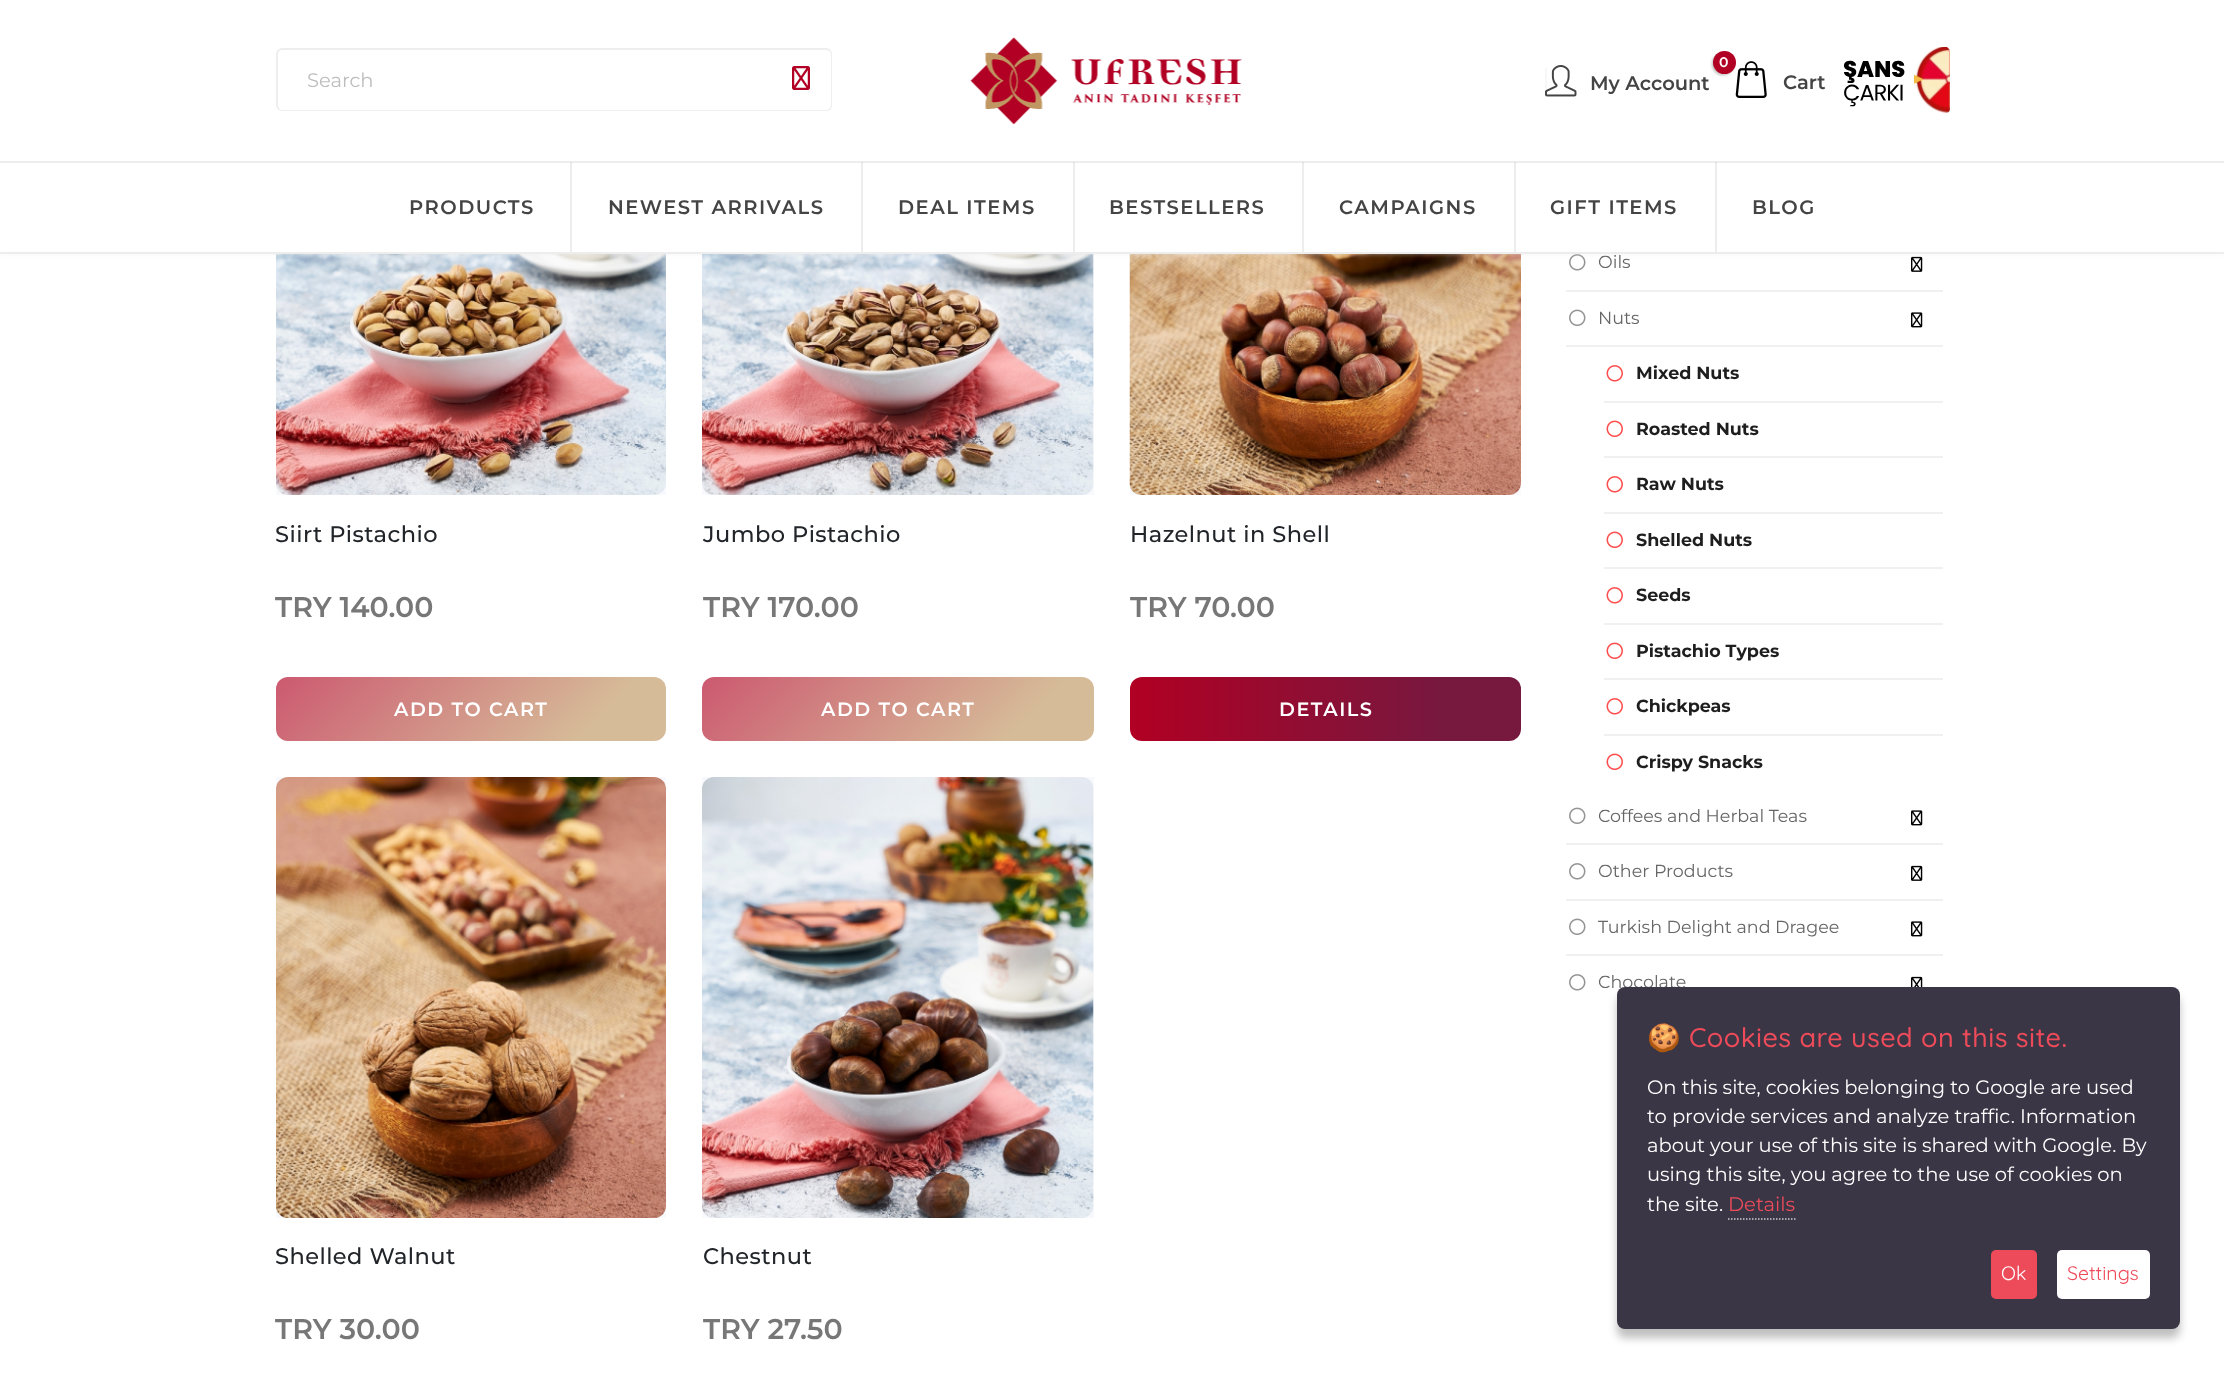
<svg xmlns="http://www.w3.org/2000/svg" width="2224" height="1374">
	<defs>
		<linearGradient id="g1" gradientUnits="userSpaceOnUse" x1="357" y1="595" x2="585" y2="822"><stop offset="0" stop-color="#CC5970" /><stop offset="0.8" stop-color="#D6BB98" /></linearGradient>
		<linearGradient id="g2" gradientUnits="userSpaceOnUse" x1="784" y1="595" x2="1012" y2="823"><stop offset="0" stop-color="#CC5970" /><stop offset="0.8" stop-color="#D6BB98" /></linearGradient>
		<linearGradient id="g3" gradientUnits="userSpaceOnUse" x1="1130" y1="709" x2="1521" y2="709"><stop offset="0" stop-color="#B10023" /><stop offset="0.8" stop-color="#77183F" /></linearGradient>
	</defs>
	<rect width="100%" height="100%" fill="#FFFFFF" />
	<rect x="276" y="483" width="390" height="12" fill="#F7F9FC" />
	<image x="276" y="254" width="390" height="241" href="assets/img6.png" />
	<rect x="702" y="254" width="392" height="241" fill="#F7F9FC" />
	<image x="702" y="254" width="392" height="241" href="assets/img7.png" />
	<rect x="1130" y="483" width="391" height="12" fill="#F7F9FC" />
	<image x="1129" y="254" width="392" height="241" href="assets/img8.png" />
	<image x="1569" y="254" width="17" height="17" href="assets/img11.png" />
	<image x="1911" y="256" width="12" height="16" href="assets/img12.png" />
	<rect x="0" y="-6" width="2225" height="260" fill="#EAEAEA" fill-opacity="0.5" filter="blur(2px)" />
	<rect x="0" y="0" width="2224" height="252" fill="#FFFFFF" />
	<rect x="1715" y="162" width="2" height="90" fill="#EDEDED" />
	<path d="M282 48H777V111H282C279 111 276 108 276 105V54C276 51 279 48 282 48ZM282 50H777V110H282C280 110 278 107 278 105V54C278 52 280 50 282 50Z" fill="#EEEEEE" fill-rule="evenodd" />
	<text x="307" y="87" font-family="Montserrat" font-size="19.5" fill="#BDBDBD">Search</text>
	<path d="M777 48H826C830 48 832 51 832 54V105C832 108 830 111 826 111H777ZM777 50H826C829 50 831 52 831 54V105C831 107 829 110 826 110H777Z" fill="#EEEEEE" fill-rule="evenodd" />
	<image x="792" y="66" width="18" height="24" href="assets/img1.png" />
	<image x="970" y="37" width="272" height="88" href="assets/img2.png" />
	<rect x="1545" y="68" width="2" height="24" fill="#F7F7F7" />
	<image x="1545" y="65" width="32" height="32" href="assets/img3.png" />
	<text x="1590" y="90" font-family="Montserrat" font-size="19.5" font-weight="600" fill="#444444">My Account</text>
	<image x="1735" y="61" width="32" height="37" href="assets/img4.png" />
	<rect x="1712" y="53" width="22" height="22" rx="11" fill="#000000" fill-opacity="0.3" filter="blur(1.5px)" />
	<circle cx="1724.5" cy="62.5" r="11.5" fill="#B10023" />
	<text x="1719" y="67" font-family="Montserrat" font-size="14" font-weight="600" fill="#FFFFFF">0</text>
	<text x="1783" y="89" font-family="Montserrat" font-size="19.5" font-weight="600" fill="#444444">Cart</text>
	<image x="1844" y="47" width="106" height="67" href="assets/img5.png" />
	<rect x="0" y="161" width="2224" height="2" fill="#EDEDED" />
	<rect x="1715" y="162" width="2" height="1" fill="#DCDCDC" />
	<rect x="0" y="252" width="2224" height="2" fill="#EDEDED" />
	<rect x="570" y="162" width="2" height="90" fill="#000000" fill-opacity="0.07" />
	<text x="409" y="214" font-family="Montserrat" font-size="19.5" font-weight="600" letter-spacing="1.5" fill="#444444">PRODUCTS</text>
	<rect x="861" y="162" width="2" height="90" fill="#000000" fill-opacity="0.07" />
	<text x="608" y="214" font-family="Montserrat" font-size="19.5" font-weight="600" letter-spacing="1.5" fill="#444444">NEWEST ARRIVALS</text>
	<rect x="1073" y="162" width="2" height="90" fill="#000000" fill-opacity="0.07" />
	<text x="898" y="214" font-family="Montserrat" font-size="19.5" font-weight="600" letter-spacing="1.5" fill="#444444">DEAL ITEMS</text>
	<rect x="1302" y="162" width="2" height="90" fill="#000000" fill-opacity="0.07" />
	<text x="1109" y="214" font-family="Montserrat" font-size="19.5" font-weight="600" letter-spacing="1.5" fill="#444444">BESTSELLERS</text>
	<rect x="1514" y="162" width="2" height="90" fill="#000000" fill-opacity="0.07" />
	<g font-family="Montserrat" font-size="19.5" font-weight="600" letter-spacing="1.5" fill="#444444">
		<text x="1339" y="214">CAMPAIGNS</text>
		<text x="1550" y="214">GIFT ITEMS</text>
		<text x="1752" y="214">BLOG</text>
	</g>
	<text x="275" y="542" font-family="Montserrat" font-size="22.5" font-weight="500" letter-spacing="0.45" fill="#212529">Siirt Pistachio</text>
	<text x="275" y="617" font-family="Montserrat" font-size="28.5" font-weight="600" fill="#777777">TRY 140.00</text>
	<rect x="276" y="677" width="390" height="64" rx="12" fill="url(#g1)" />
	<text x="394" y="716" font-family="Montserrat" font-size="19.25" font-weight="600" letter-spacing="1.5" fill="#FFFFFF">ADD TO CART</text>
	<text x="703" y="542" font-family="Montserrat" font-size="22.5" font-weight="500" letter-spacing="0.45" fill="#212529">Jumbo Pistachio</text>
	<text x="703" y="617" font-family="Montserrat" font-size="28.5" font-weight="600" fill="#777777">TRY 170.00</text>
	<rect x="702" y="677" width="392" height="64" rx="12" fill="url(#g2)" />
	<text x="821" y="716" font-family="Montserrat" font-size="19.25" font-weight="600" letter-spacing="1.5" fill="#FFFFFF">ADD TO CART</text>
	<text x="1130" y="542" font-family="Montserrat" font-size="22.5" font-weight="500" letter-spacing="0.45" fill="#212529">Hazelnut in Shell</text>
	<text x="1130" y="617" font-family="Montserrat" font-size="28.5" font-weight="600" fill="#777777">TRY 70.00</text>
	<rect x="1130" y="677" width="391" height="64" rx="12" fill="url(#g3)" />
	<text x="1279" y="716" font-family="Montserrat" font-size="19.25" font-weight="600" letter-spacing="1.5" fill="#FFFFFF">DETAILS</text>
	<rect x="276" y="777" width="390" height="441" fill="#F7F9FC" />
	<image x="276" y="777" width="390" height="441" href="assets/img9.png" />
	<text x="275" y="1264" font-family="Montserrat" font-size="22.5" font-weight="500" letter-spacing="0.45" fill="#212529">Shelled Walnut</text>
	<text x="275" y="1339" font-family="Montserrat" font-size="28.5" font-weight="600" fill="#777777">TRY 30.00</text>
	<rect x="702" y="777" width="392" height="441" fill="#F7F9FC" />
	<image x="702" y="777" width="392" height="441" href="assets/img10.png" />
	<text x="703" y="1264" font-family="Montserrat" font-size="22.5" font-weight="500" letter-spacing="0.45" fill="#212529">Chestnut</text>
	<text x="703" y="1339" font-family="Montserrat" font-size="28.5" font-weight="600" fill="#777777">TRY 27.50</text>
	<rect x="1566" y="290" width="377" height="2" fill="#F0F0F0" />
	<text x="1598" y="268" font-family="Montserrat" font-size="17.5" fill="#666666">Oils</text>
	<rect x="1566" y="345" width="377" height="2" fill="#F0F0F0" />
	<image x="1569" y="309" width="17" height="17" href="assets/img13.png" />
	<text x="1598" y="324" font-family="Montserrat" font-size="17.5" fill="#666666">Nuts</text>
	<image x="1911" y="312" width="12" height="16" href="assets/img14.png" />
	<rect x="1604" y="401" width="339" height="2" fill="#F0F0F0" />
	<image x="1606" y="365" width="17" height="17" href="assets/img15.png" />
	<text x="1636" y="379" font-family="Montserrat" font-size="17.5" font-weight="700" fill="#1E1E1E">Mixed Nuts</text>
	<rect x="1604" y="456" width="339" height="2" fill="#F0F0F0" />
	<image x="1606" y="420" width="17" height="17" href="assets/img16.png" />
	<text x="1636" y="435" font-family="Montserrat" font-size="17.5" font-weight="700" fill="#1E1E1E">Roasted Nuts</text>
	<rect x="1604" y="512" width="339" height="2" fill="#F0F0F0" />
	<image x="1606" y="476" width="17" height="17" href="assets/img15.png" />
	<text x="1636" y="490" font-family="Montserrat" font-size="17.5" font-weight="700" fill="#1E1E1E">Raw Nuts</text>
	<rect x="1604" y="567" width="339" height="2" fill="#F0F0F0" />
	<image x="1606" y="531" width="17" height="17" href="assets/img16.png" />
	<text x="1636" y="546" font-family="Montserrat" font-size="17.5" font-weight="700" fill="#1E1E1E">Shelled Nuts</text>
	<rect x="1604" y="623" width="339" height="2" fill="#F0F0F0" />
	<image x="1606" y="587" width="17" height="17" href="assets/img15.png" />
	<text x="1636" y="601" font-family="Montserrat" font-size="17.5" font-weight="700" fill="#1E1E1E">Seeds</text>
	<rect x="1604" y="678" width="339" height="2" fill="#F0F0F0" />
	<image x="1606" y="642" width="17" height="17" href="assets/img16.png" />
	<text x="1636" y="657" font-family="Montserrat" font-size="17.5" font-weight="700" fill="#1E1E1E">Pistachio Types</text>
	<rect x="1604" y="734" width="339" height="2" fill="#F0F0F0" />
	<image x="1606" y="698" width="17" height="17" href="assets/img15.png" />
	<text x="1636" y="712" font-family="Montserrat" font-size="17.5" font-weight="700" fill="#1E1E1E">Chickpeas</text>
	<image x="1606" y="753" width="17" height="17" href="assets/img16.png" />
	<text x="1636" y="768" font-family="Montserrat" font-size="17.5" font-weight="700" fill="#1E1E1E">Crispy Snacks</text>
	<rect x="1566" y="843" width="377" height="2" fill="#F0F0F0" />
	<image x="1569" y="807" width="17" height="17" href="assets/img13.png" />
	<text x="1598" y="822" font-family="Montserrat" font-size="17.5" fill="#666666">Coffees and Herbal Teas</text>
	<image x="1911" y="810" width="12" height="16" href="assets/img14.png" />
	<rect x="1566" y="899" width="377" height="2" fill="#F0F0F0" />
	<image x="1569" y="863" width="17" height="17" href="assets/img11.png" />
	<text x="1598" y="877" font-family="Montserrat" font-size="17.5" fill="#666666">Other Products</text>
	<image x="1911" y="865" width="12" height="16" href="assets/img12.png" />
	<rect x="1566" y="954" width="377" height="2" fill="#F0F0F0" />
	<image x="1569" y="918" width="17" height="17" href="assets/img13.png" />
	<text x="1598" y="933" font-family="Montserrat" font-size="17.5" fill="#666666">Turkish Delight and Dragee</text>
	<image x="1911" y="921" width="12" height="16" href="assets/img14.png" />
	<image x="1569" y="974" width="17" height="17" href="assets/img11.png" />
	<text x="1598" y="988" font-family="Montserrat" font-size="17.5" fill="#666666">Chocolate</text>
	<image x="1911" y="976" width="12" height="11" href="assets/img17.png" />
	<rect x="1617" y="996" width="563" height="342" rx="8" fill="#000000" fill-opacity="0.25" filter="blur(4.5px)" />
	<rect x="1617" y="987" width="563" height="342" rx="8" fill="#3B3646" />
	<text x="1647" y="1047" font-family="Noto Color Emoji" font-size="27" letter-spacing="0.45" fill="#EE4B5A">🍪</text>
	<text x="1689" y="1047" font-family="Quicksand" font-size="27" font-weight="500" letter-spacing="0.45" fill="#EE4B5A">Cookies are used on this site.</text>
	<g font-family="Montserrat" font-size="19.5" fill="#FFFFFF">
		<text x="1647" y="1094">On this site, cookies belonging to Google are used</text>
		<text x="1647" y="1123">to provide services and analyze traffic. Information</text>
		<text x="1647" y="1152">about your use of this site is shared with Google. By</text>
		<text x="1647" y="1181">using this site, you agree to the use of cookies on</text>
		<text x="1647" y="1211">the site.</text>
	</g>
	<text x="1728" y="1211" font-family="Montserrat" font-size="19.5" fill="#EE4B5A">Details</text>
	<path d="M1728 1219H1795.5" fill="none" stroke="#CECDD1" stroke-width="1.5" stroke-dasharray="1.5 1.5" />
	<rect x="1991" y="1250" width="46" height="49" rx="5" fill="#EE4B5A" />
	<text x="2001" y="1280" font-family="Quicksand" font-size="19.5" fill="#FFFFFF">Ok</text>
	<rect x="2057" y="1250" width="93" height="49" rx="5" fill="#FFFFFF" />
	<text x="2067" y="1280" font-family="Quicksand" font-size="19.5" fill="#EE4B5A">Settings</text>
</svg>
